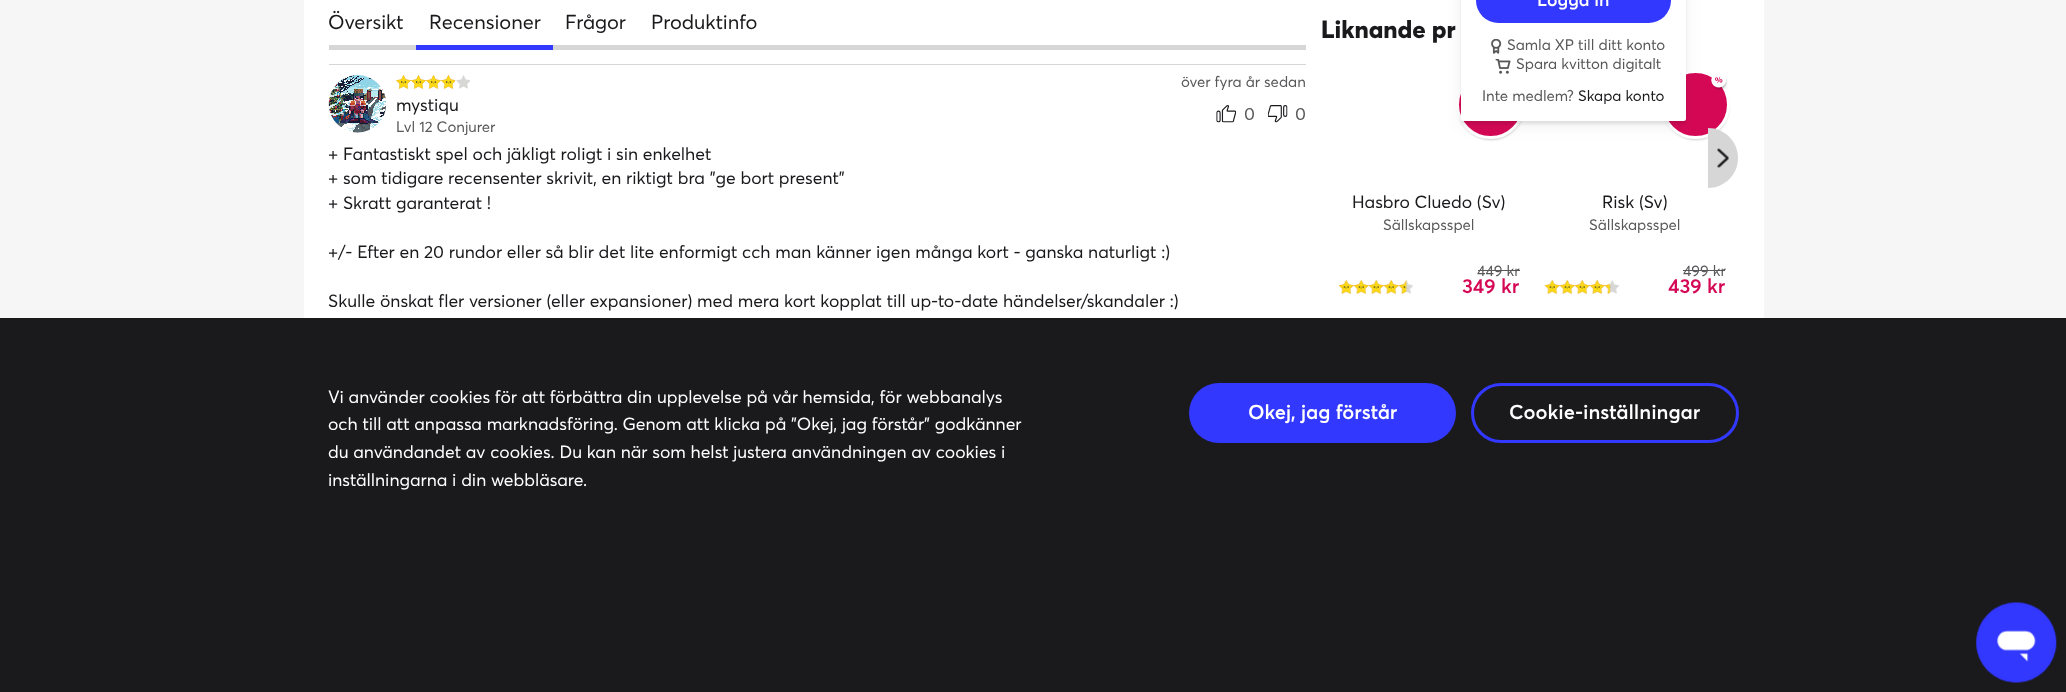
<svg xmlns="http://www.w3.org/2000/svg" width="2066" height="692">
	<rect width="100%" height="100%" fill="#F6F6F6" />
	<rect x="304" y="0" width="1460" height="318" fill="#FFFFFF" />
	<rect x="1663" y="74" width="66" height="66" rx="33" fill="#000000" fill-opacity="0.2" filter="blur(1px)" />
	<circle cx="1695.5" cy="104.5" r="33" fill="#D50855" stroke="#FFFFFF" stroke-width="3" />
	<path d="M1708 128C1724.5 128 1738 141.5 1738 158C1738 174.5 1724.5 188 1708 188Z" fill="#D6D6D6" />
	<rect x="1458" y="74" width="66" height="66" rx="33" fill="#000000" fill-opacity="0.2" filter="blur(1px)" />
	<circle cx="1490.5" cy="104.5" r="33" fill="#D50855" stroke="#FFFFFF" stroke-width="3" />
	<rect x="1461" y="-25" width="225" height="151" rx="2.5" fill="#35373A" fill-opacity="0.08" filter="blur(7.5px)" />
	<rect x="1461" y="-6" width="225" height="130" rx="2.5" fill="#000000" fill-opacity="0.08" filter="blur(1px)" />
	<rect x="1461" y="-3" width="225" height="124" rx="2.5" fill="#FFFFFF" />
	<rect x="1476" y="-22" width="195" height="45" rx="22.5" fill="#3338FF" />
	<text x="1537" y="6" font-family="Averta" font-size="17.5" font-weight="600" fill="#FFFFFF">Logga in</text>
	<image x="1491" y="39" width="11" height="15" href="assets/img1.png" />
	<text x="1507" y="50" font-family="Averta" font-size="15" fill="#58585A">Samla XP till ditt konto</text>
	<image x="1495" y="59" width="16" height="15" href="assets/img2.png" />
	<g font-family="Averta" font-size="15" fill="#58585A">
		<text x="1516" y="69">Spara kvitton digitalt</text>
		<text x="1482" y="101">Inte medlem?</text>
	</g>
	<text x="1578" y="101" font-family="Averta" font-size="15" fill="#1A1A1D">Skapa konto</text>
	<rect x="329" y="45" width="87" height="5" fill="#D6D6D6" />
	<g font-family="Averta" font-size="20" fill="#1A1A1D">
		<text x="328" y="29">Översikt</text>
		<text x="429" y="29">Recensioner</text>
	</g>
	<rect x="553" y="45" width="753" height="5" fill="#D6D6D6" />
	<g font-family="Averta" font-size="20" fill="#1A1A1D">
		<text x="565" y="29">Frågor</text>
		<text x="651" y="29">Produktinfo</text>
	</g>
	<rect x="416" y="45" width="137" height="5" fill="#3338FF" />
	<rect x="329" y="64" width="977" height="1" fill="#D6D6D6" />
	<image x="328" y="75" width="59" height="58" href="assets/img3.png" />
	<image x="340" y="89" width="38" height="35" href="assets/img4.png" />
	<image x="396" y="75" width="74" height="14" href="assets/img5.png" />
	<image x="396" y="75" width="59" height="14" href="assets/img6.png" />
	<text x="1181" y="87" font-family="Averta" font-size="15" fill="#58585A">över fyra år sedan</text>
	<text x="396" y="111" font-family="Averta" font-size="17.5" fill="#1A1A1D">mystiqu</text>
	<image x="1216" y="105" width="20" height="18" href="assets/img7.png" />
	<text x="1244" y="120" font-family="Averta" font-size="17.5" fill="#58585A">0</text>
	<image x="1268" y="105" width="20" height="18" href="assets/img8.png" />
	<text x="1295" y="120" font-family="Averta" font-size="17.5" fill="#58585A">0</text>
	<text x="396" y="132" font-family="Averta" font-size="15" fill="#58585A">Lvl 12 Conjurer</text>
	<g font-family="Averta" font-size="17.5" fill="#1A1A1D">
		<text x="328" y="160">+ Fantastiskt spel och jäkligt roligt i sin enkelhet</text>
		<text x="328" y="184">+ som tidigare recensenter skrivit, en riktigt bra "ge bort present"</text>
		<text x="328" y="209">+ Skratt garanterat !</text>
		<text x="328" y="258">+/- Efter en 20 rundor eller så blir det lite enformigt cch man känner igen många kort - ganska naturligt :)</text>
		<text x="328" y="307">Skulle önskat fler versioner (eller expansioner) med mera kort kopplat till up-to-date händelser/skandaler :)</text>
	</g>
	<text x="1321" y="38" font-family="Averta" font-size="24.5" font-weight="800" fill="#1A1A1D">Liknande pr</text>
	<image x="1717" y="148" width="12" height="20" href="assets/img9.png" />
	<text x="1352" y="208" font-family="Averta" font-size="17.5" fill="#1A1A1D">Hasbro Cluedo (Sv)</text>
	<text x="1383" y="230" font-family="Averta" font-size="15" fill="#58585A">Sällskapsspel</text>
	<image x="1339" y="280" width="74" height="14" href="assets/img10.png" />
	<image x="1339" y="280" width="68" height="14" href="assets/img11.png" />
	<text x="1477" y="276" font-family="Averta" font-size="15" fill="#58585A">449 kr</text>
	<rect x="1478" y="270" width="42" height="1" fill="#58585A" />
	<text x="1462" y="293" font-family="Averta" font-size="20" font-weight="600" fill="#D50855">349 kr</text>
	<rect x="1714" y="76" width="12" height="13" rx="6" fill="#000000" fill-opacity="0.3" filter="blur(1px)" />
	<image x="1711" y="75" width="15" height="13" href="assets/img12.png" />
	<text x="1602" y="208" font-family="Averta" font-size="17.5" fill="#1A1A1D">Risk (Sv)</text>
	<text x="1589" y="230" font-family="Averta" font-size="15" fill="#58585A">Sällskapsspel</text>
	<image x="1544" y="280" width="75" height="14" href="assets/img13.png" />
	<image x="1544" y="280" width="67" height="14" href="assets/img14.png" />
	<text x="1683" y="276" font-family="Averta" font-size="15" fill="#58585A">499 kr</text>
	<rect x="1683" y="270" width="42" height="1" fill="#58585A" />
	<text x="1668" y="293" font-family="Averta" font-size="20" font-weight="600" fill="#D50855">439 kr</text>
	<rect x="0" y="318" width="2066" height="374" fill="#1A1A1D" />
	<g font-family="Averta" font-size="17.5" fill="#FFFFFF">
		<text x="328" y="403">Vi använder cookies för att förbättra din upplevelse på vår hemsida, för webbanalys</text>
		<text x="328" y="430">och till att anpassa marknadsföring. Genom att klicka på ”Okej, jag förstår” godkänner</text>
		<text x="328" y="458">du användandet av cookies. Du kan när som helst justera användningen av cookies i</text>
		<text x="328" y="486">inställningarna i din webbläsare.</text>
	</g>
	<rect x="1189" y="383" width="267" height="60" rx="30" fill="#3338FF" />
	<text x="1248" y="419" font-family="Averta" font-size="20" font-weight="600" fill="#FFFFFF">Okej, jag förstår</text>
	<rect x="1472.5" y="384.5" width="265" height="57" rx="28.5" fill="none" stroke="#3338FF" stroke-width="3" />
	<text x="1509" y="419" font-family="Averta" font-size="20" font-weight="600" fill="#FFFFFF">Cookie-inställningar</text>
	<image x="1976" y="602" width="81" height="81" href="assets/img15.png" />
</svg>
